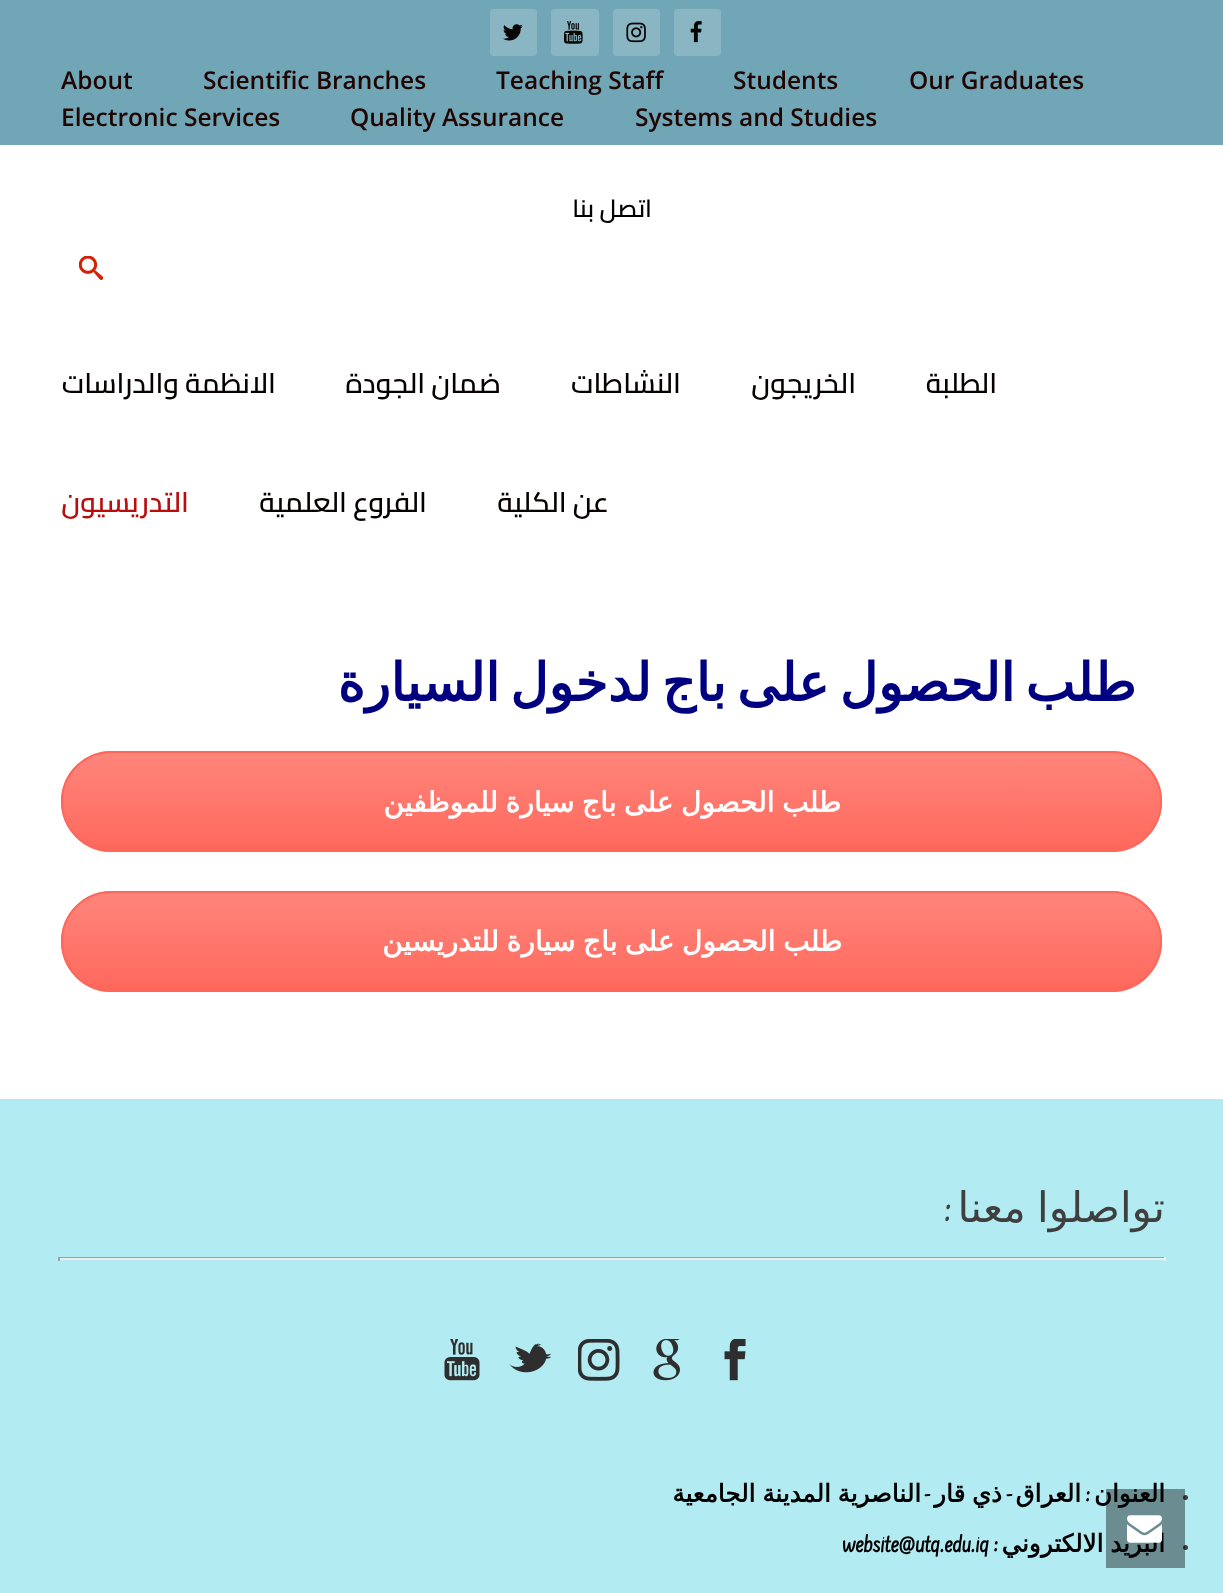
<svg xmlns="http://www.w3.org/2000/svg" width="1223" height="1593">
	<defs>
		<clipPath id="clip1"><rect x="61" y="751" width="1101" height="101" rx="50.5" /></clipPath>
		<linearGradient id="g1" gradientUnits="userSpaceOnUse" x1="612" y1="752" x2="612" y2="851"><stop offset="0" stop-color="#FFFFFF" stop-opacity="0.2" /><stop offset="1" stop-color="#FFFFFF" stop-opacity="0.01" /></linearGradient>
		<clipPath id="clip2"><rect x="61" y="891" width="1101" height="101" rx="50.5" /></clipPath>
		<linearGradient id="g2" gradientUnits="userSpaceOnUse" x1="612" y1="892" x2="612" y2="991"><stop offset="0" stop-color="#FFFFFF" stop-opacity="0.2" /><stop offset="1" stop-color="#FFFFFF" stop-opacity="0.01" /></linearGradient>
	</defs>
	<rect width="100%" height="100%" fill="#FFFFFF" />
	<rect x="0" y="0" width="1223" height="145" fill="#70A6B6" />
	<rect x="674" y="9" width="47" height="47" rx="4" fill="#8AB5C2" />
	<image x="690" y="21" width="12" height="22" href="assets/img1.png" />
	<rect x="613" y="9" width="47" height="47" rx="4" fill="#8AB5C2" />
	<image x="626" y="22" width="20" height="21" href="assets/img2.png" />
	<rect x="551" y="9" width="48" height="47" rx="4" fill="#8AB5C2" />
	<image x="564" y="21" width="19" height="23" href="assets/img3.png" />
	<rect x="490" y="9" width="47" height="47" rx="4" fill="#8AB5C2" />
	<image x="503" y="24" width="20" height="17" href="assets/img4.png" />
	<g font-family="Open Sans" font-size="24.5" font-weight="600" fill="#210503">
		<text x="909" y="89">Our Graduates</text>
		<text x="733" y="89">Students</text>
		<text x="496" y="89">Teaching Staff</text>
		<text x="203" y="89">Scientific Branches</text>
		<text x="61" y="89">About</text>
		<text x="635" y="126">Systems and Studies</text>
		<text x="350" y="126">Quality Assurance</text>
		<text x="61" y="126">Electronic Services</text>
	</g>
	<text x="652" y="217" font-family="Cairo" font-size="24.5" font-weight="600" direction="rtl" fill="#000000">اتصل بنا</text>
	<image x="79" y="256" width="24" height="24" href="assets/img5.png" />
	<g font-family="Cairo" font-size="28" font-weight="600" direction="rtl" fill="#060000">
		<text x="997" y="393">الطلبة</text>
		<text x="856" y="393">الخريجون</text>
		<text x="681" y="393">النشاطات</text>
		<text x="501" y="393">ضمان الجودة</text>
		<text x="276" y="393">الانظمة والدراسات</text>
		<text x="609" y="512">عن الكلية</text>
		<text x="427" y="512">الفروع العلمية</text>
	</g>
	<text x="189" y="512" font-family="Cairo" font-size="28" font-weight="600" direction="rtl" fill="#B90C0C">التدريسيون</text>
	<text x="1136" y="701" word-spacing="-6.25" font-family="DejaVu Sans" font-size="52.5" font-weight="700" direction="rtl" fill="#000080">طلب الحصول على باج لدخول السيارة</text>
	<rect x="61" y="751" width="1101" height="101" rx="50.5" fill="#FF675B" />
	<g clip-path="url(#clip1)">
		<rect x="61" y="753" width="1101" height="92" fill="url(#g1)" />
	</g>
	<rect x="62" y="752" width="1099" height="99" rx="49.5" fill="none" stroke="#FF675B" stroke-width="2" />
	<text x="841" y="812" word-spacing="-1.25" font-family="DejaVu Sans" font-size="28" font-weight="700" direction="rtl" fill="#FFFFFF">طلب الحصول على باج سيارة للموظفين</text>
	<rect x="61" y="891" width="1101" height="101" rx="50.5" fill="#FF675B" />
	<g clip-path="url(#clip2)">
		<rect x="61" y="893" width="1101" height="92" fill="url(#g2)" />
	</g>
	<rect x="62" y="892" width="1099" height="99" rx="49.5" fill="none" stroke="#FF675B" stroke-width="2" />
	<text x="842" y="951" word-spacing="-1.25" font-family="DejaVu Sans" font-size="28" font-weight="700" direction="rtl" fill="#FFFFFF">طلب الحصول على باج سيارة للتدريسين</text>
	<rect x="0" y="1099" width="1223" height="494" fill="#B2EBF2" />
	<text x="1165" y="1222" word-spacing="-2" font-family="DejaVu Sans" font-size="42" direction="rtl" fill="#3F3F3F">تواصلوا معنا</text>
	<text x="952" y="1222" font-family="Farsan" font-size="42" direction="rtl" fill="#3F3F3F">:</text>
	<rect x="58" y="1257" width="1108" height="1" fill="#9F9F9F" />
	<rect x="1164" y="1257" width="2" height="4" fill="#EEEEEE" />
	<rect x="58" y="1258" width="1108" height="2" fill="#EEEEEE" />
	<rect x="58" y="1257" width="2" height="4" fill="#9F9F9F" />
	<image x="724" y="1339" width="22" height="42" href="assets/img6.png" />
	<image x="653" y="1339" width="27" height="42" href="assets/img7.png" />
	<image x="578" y="1339" width="42" height="42" href="assets/img8.png" />
	<image x="509" y="1343" width="42" height="30" href="assets/img9.png" />
	<image x="444" y="1339" width="36" height="42" href="assets/img10.png" />
	<circle cx="1185.5" cy="1497.5" r="2.5" fill="#3F3F3F" />
	<text x="1165" y="1502" font-family="DejaVu Sans" font-size="24.5" font-weight="700" direction="rtl" fill="#000000">العنوان</text>
	<text x="1090" y="1502" font-family="Farsan" font-size="24.5" font-weight="700" direction="rtl" fill="#000000">:</text>
	<text x="1081" y="1502" font-family="DejaVu Sans" font-size="24.5" font-weight="700" direction="rtl" fill="#000000">العراق</text>
	<text x="1012" y="1502" font-family="Farsan" font-size="24.5" font-weight="700" direction="rtl" fill="#000000">-</text>
	<text x="1002" y="1502" word-spacing="-1" font-family="DejaVu Sans" font-size="24.5" font-weight="700" direction="rtl" fill="#000000">ذي قار</text>
	<text x="930" y="1502" font-family="Farsan" font-size="24.5" font-weight="700" direction="rtl" fill="#000000">-</text>
	<text x="921" y="1502" word-spacing="-1" font-family="DejaVu Sans" font-size="24.5" font-weight="700" direction="rtl" fill="#000000">الناصرية المدينة الجامعية</text>
	<circle cx="1185.5" cy="1547.5" r="2.5" fill="#3F3F3F" />
	<text x="1165" y="1552" word-spacing="-1" font-family="DejaVu Sans" font-size="24.5" font-weight="700" direction="rtl" fill="#000000">البريد الالكتروني</text>
	<text x="998" y="1552" font-family="Farsan" font-size="24.5" font-weight="700" direction="rtl" fill="#000000">:</text>
	<text x="842" y="1552" font-family="Farsan" font-size="24.5" font-weight="700" fill="#000000">website@utq.edu.iq</text>
	<rect x="1106" y="1489" width="79" height="79" fill="#000000" fill-opacity="0.4" />
	<image x="1127" y="1515" width="35" height="28" href="assets/img11.png" />
</svg>
